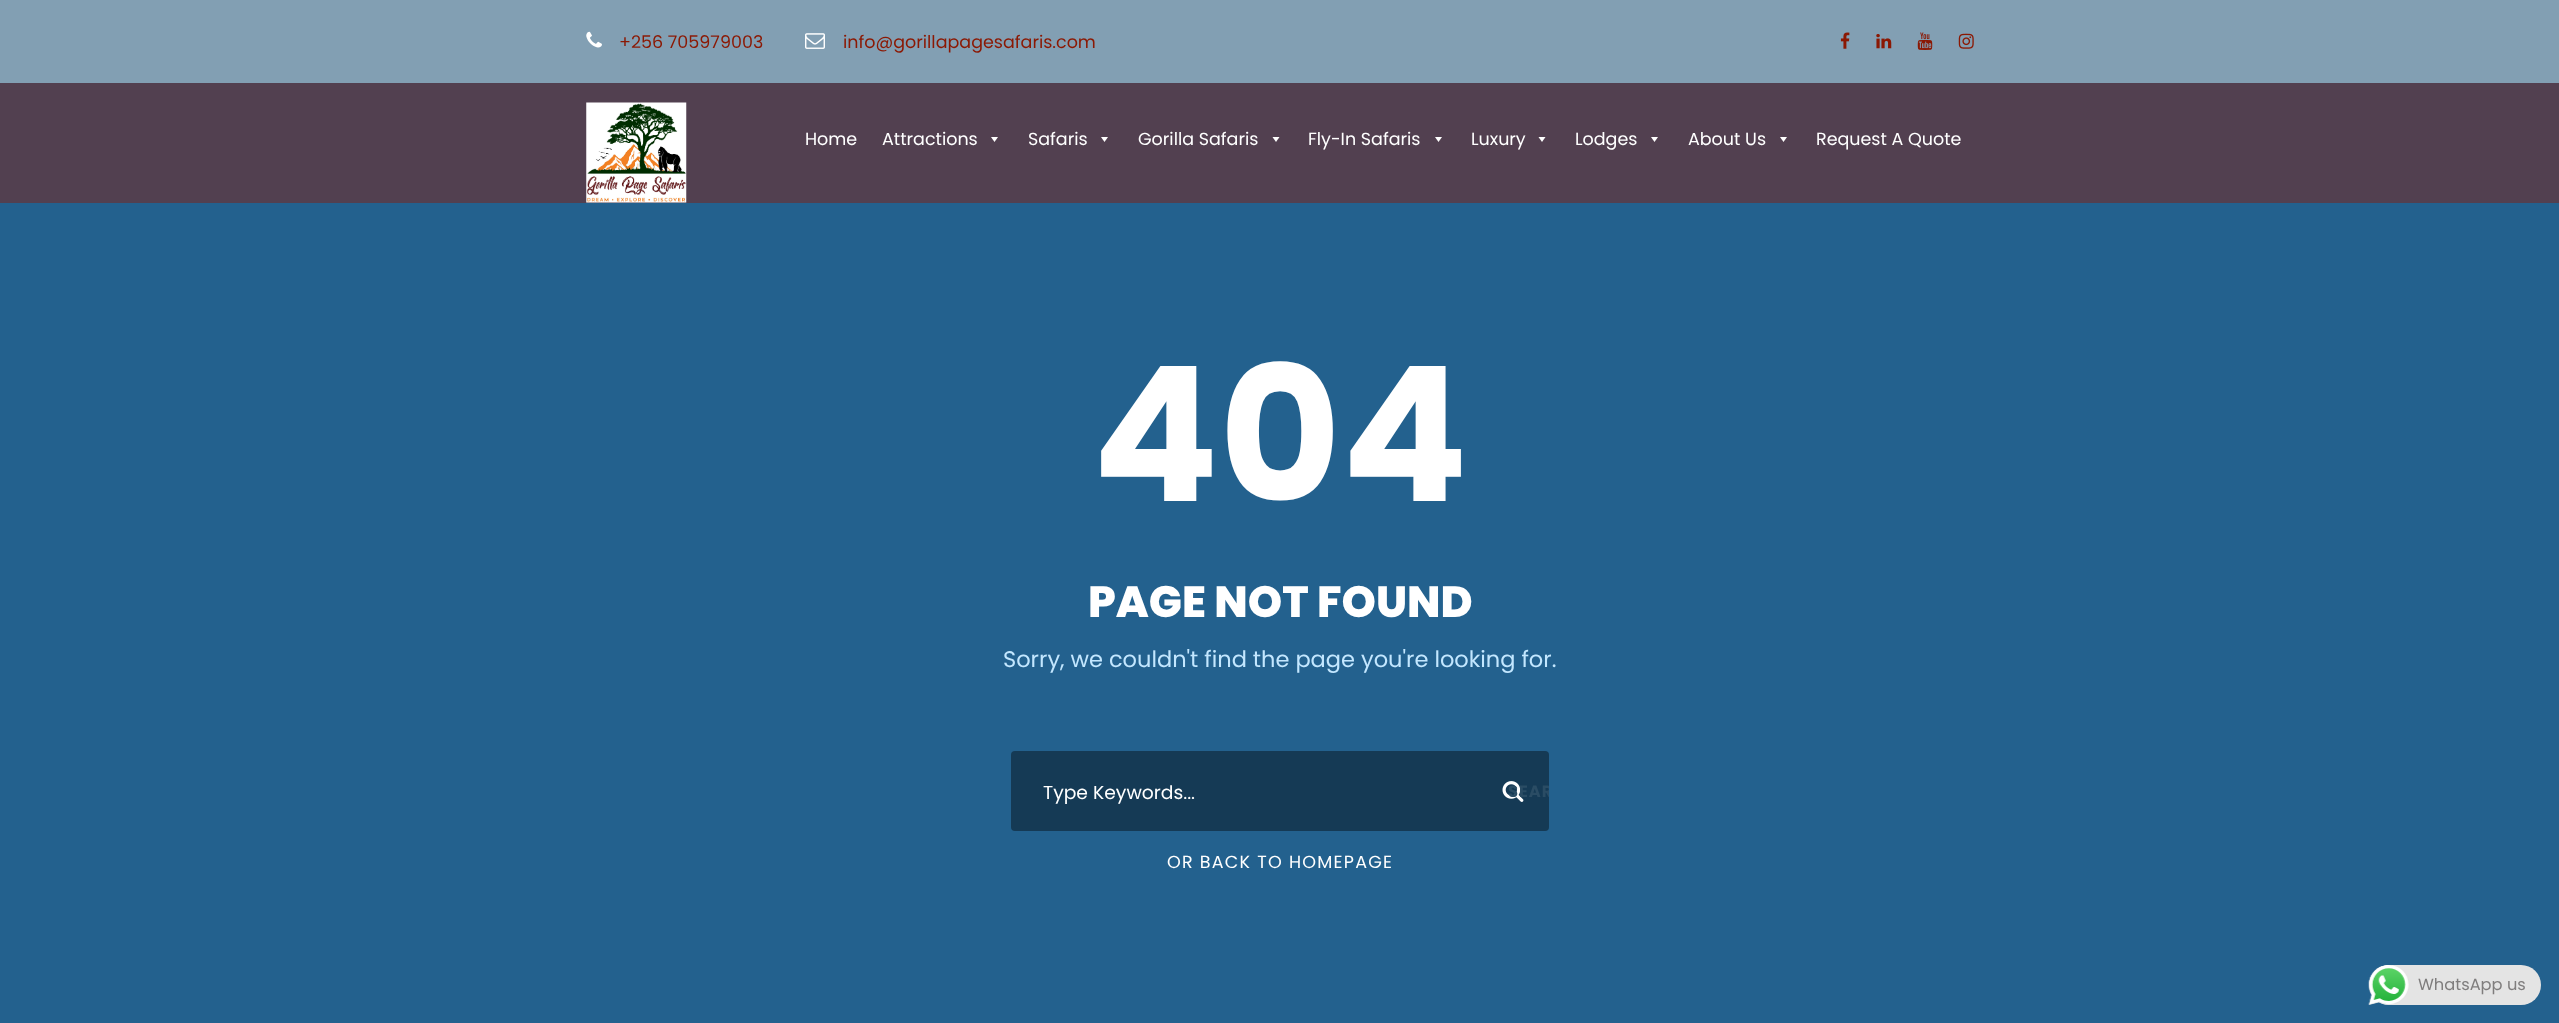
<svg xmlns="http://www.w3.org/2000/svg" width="2559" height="1023">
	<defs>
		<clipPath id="clip1"><rect x="1466" y="751" width="83" height="80" /></clipPath>
	</defs>
	<rect width="100%" height="100%" fill="#23618E" />
	<rect x="0" y="0" width="2559" height="83" fill="#829FB3" />
	<image x="586" y="31" width="16" height="17" href="assets/img1.png" />
	<text x="619" y="48" font-family="Poppins" font-size="17.5" fill="#8B1803">+256 705979003</text>
	<image x="805" y="33" width="20" height="16" href="assets/img2.png" />
	<text x="843" y="48" font-family="Poppins" font-size="17.5" fill="#8B1803">info@gorillapagesafaris.com</text>
	<image x="1840" y="32" width="10" height="17" href="assets/img3.png" />
	<image x="1876" y="34" width="16" height="15" href="assets/img4.png" />
	<image x="1917" y="32" width="16" height="18" href="assets/img5.png" />
	<image x="1958" y="33" width="16" height="16" href="assets/img6.png" />
	<rect x="0" y="83" width="2559" height="120" fill="#524050" />
	<image x="586" y="102" width="101" height="101" href="assets/img7.png" />
	<g font-family="Poppins" font-size="17.5" fill="#FFFFFF">
		<text x="805" y="145">Home</text>
		<text x="882" y="145">Attractions</text>
	</g>
	<path d="M998 137L994.5 142L991 137Z" fill="#FFFFFF" />
	<text x="1028" y="145" font-family="Poppins" font-size="17.5" fill="#FFFFFF">Safaris</text>
	<path d="M1108 137L1104.5 142L1101 137Z" fill="#FFFFFF" />
	<text x="1138" y="145" font-family="Poppins" font-size="17.5" fill="#FFFFFF">Gorilla Safaris</text>
	<path d="M1279.5 137L1276 142L1272.5 137Z" fill="#FFFFFF" />
	<text x="1308" y="145" font-family="Poppins" font-size="17.5" fill="#FFFFFF">Fly-In Safaris</text>
	<path d="M1442 137L1438.5 142L1435 137Z" fill="#FFFFFF" />
	<text x="1471" y="145" font-family="Poppins" font-size="17.5" fill="#FFFFFF">Luxury</text>
	<path d="M1545.5 137L1542 142L1538.5 137Z" fill="#FFFFFF" />
	<text x="1575" y="145" font-family="Poppins" font-size="17.5" fill="#FFFFFF">Lodges</text>
	<path d="M1658 137L1654.5 142L1651 137Z" fill="#FFFFFF" />
	<text x="1688" y="145" font-family="Poppins" font-size="17.5" fill="#FFFFFF">About Us</text>
	<path d="M1787 137L1783.5 142L1780 137Z" fill="#FFFFFF" />
	<text x="1816" y="145" font-family="Poppins" font-size="17.5" fill="#FFFFFF">Request A Quote</text>
	<text x="1092" y="501" font-family="Poppins" font-size="187.5" font-weight="700" fill="#FFFFFF">404</text>
	<text x="1088" y="617" font-family="Poppins" font-size="43.75" font-weight="800" fill="#FFFFFF">PAGE NOT FOUND</text>
	<text x="1003" y="667" font-family="Poppins" font-size="22.5" fill="#C3E7FF">Sorry, we couldn't find the page you're looking for.</text>
	<rect x="1011" y="751" width="538" height="80" rx="4" fill="#153A55" />
	<text x="1043" y="799" font-family="Poppins" font-size="18.75" fill="#FFFFFF">Type Keywords...</text>
	<image x="1502" y="781" width="22" height="21" href="assets/img8.png" />
	<g clip-path="url(#clip1)">
		<text x="1508" y="797" font-family="Poppins" font-size="16.25" font-weight="700" letter-spacing="1" fill="#2A4C64">SEAR</text>
	</g>
	<text x="1167" y="868" font-family="Poppins" font-size="17.5" letter-spacing="1.25" fill="#FFFFFF">OR BACK TO HOMEPAGE</text>
	<rect x="2369" y="965" width="172" height="40" rx="20" fill="#E4E4E4" />
	<image x="2368" y="965" width="41" height="40" href="assets/img9.png" />
	<text x="2418" y="990" font-family="Poppins" font-size="16.25" fill="#7F7D7D">WhatsApp us</text>
</svg>
